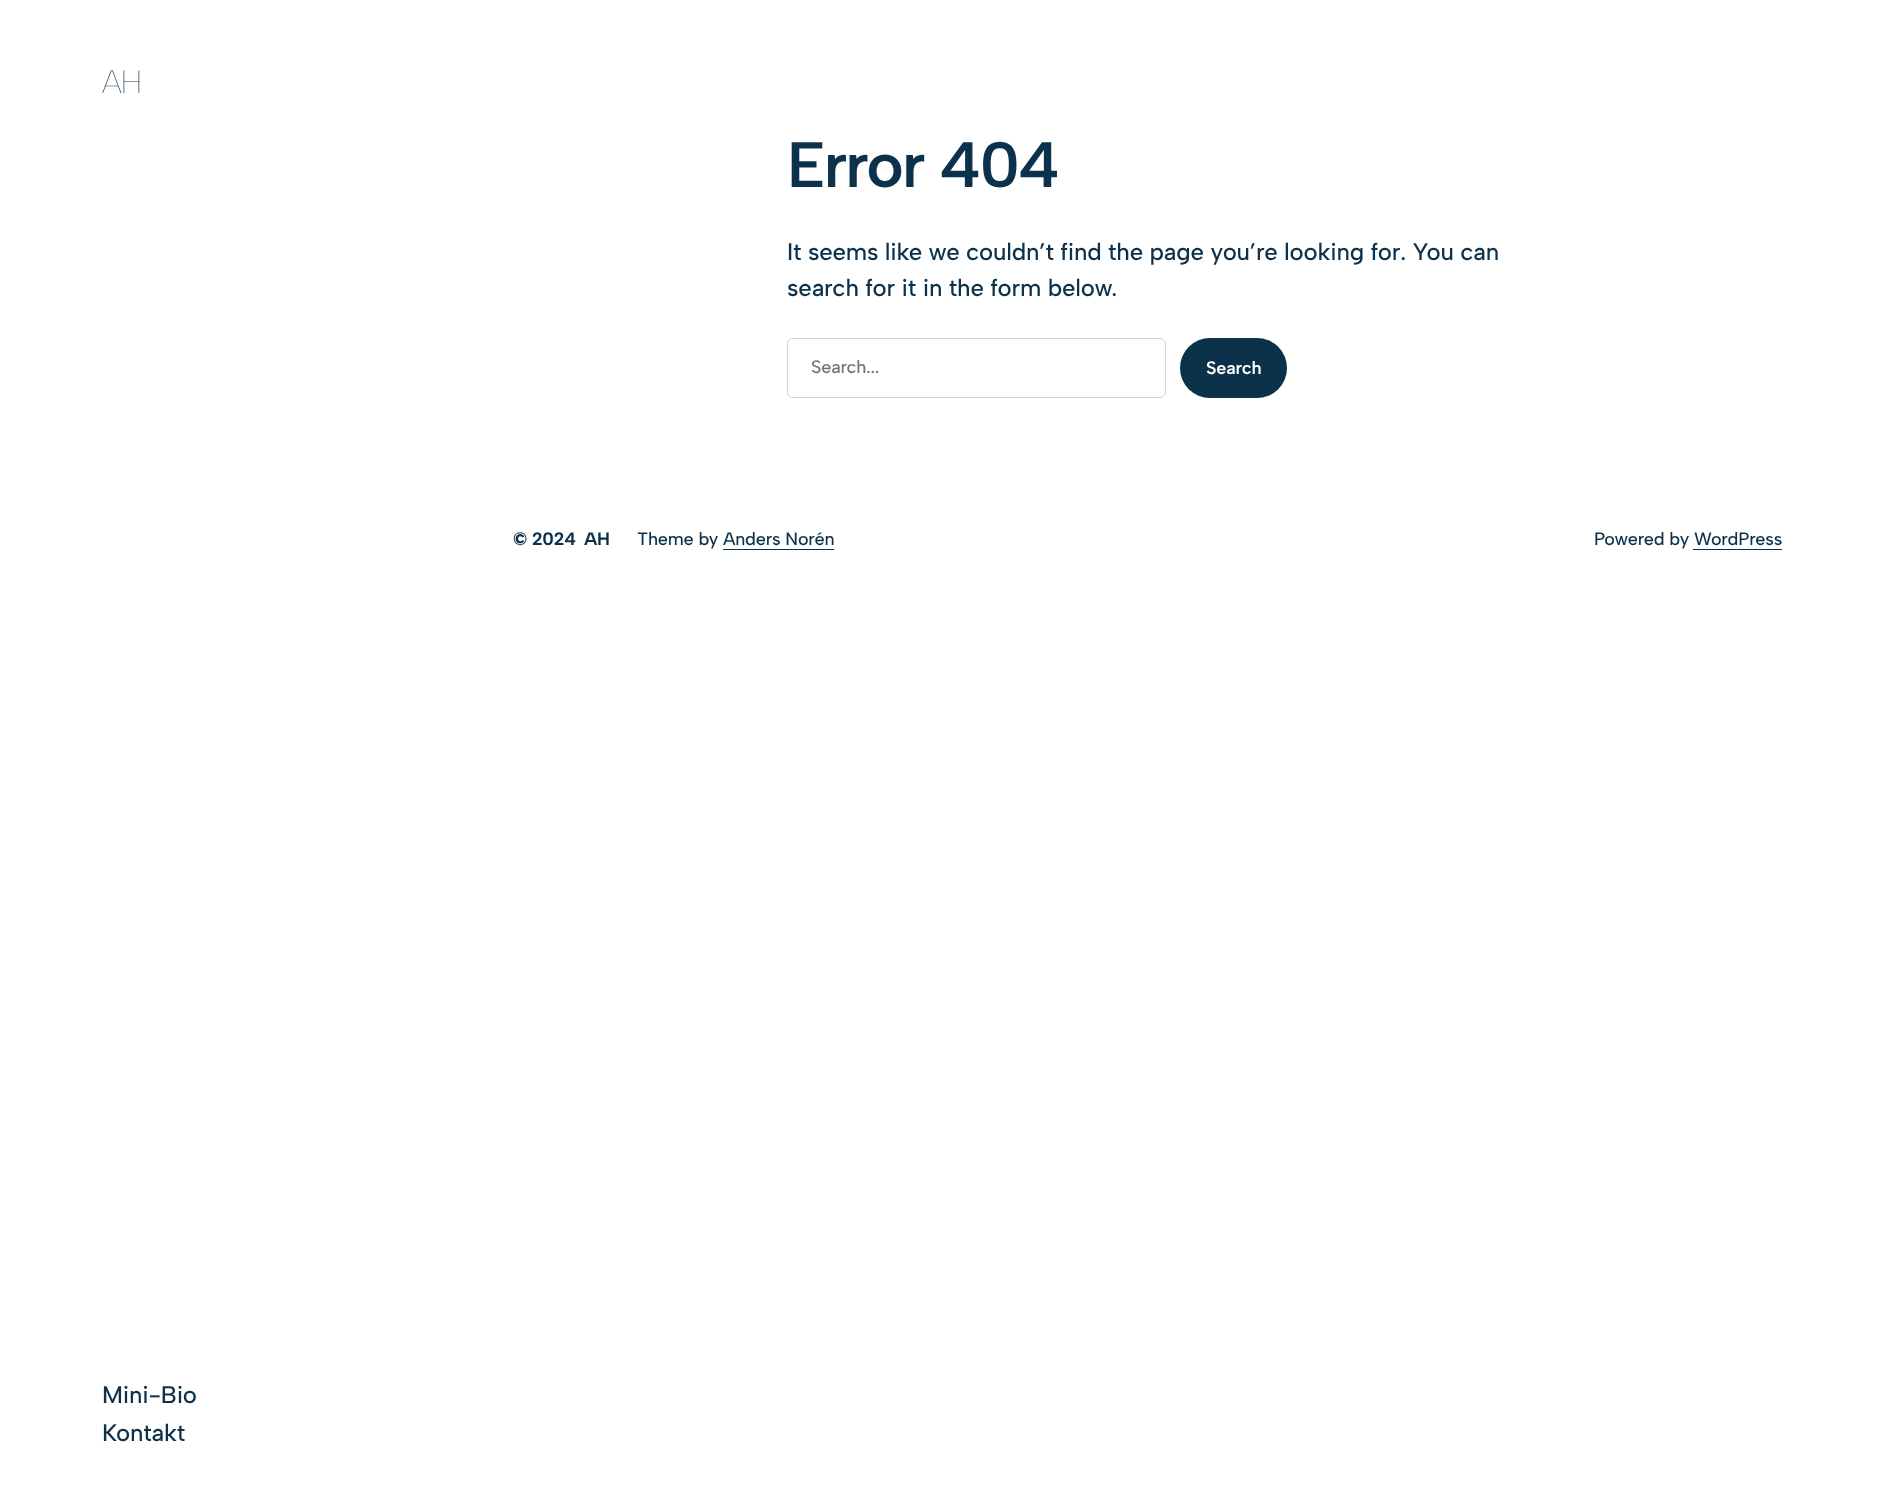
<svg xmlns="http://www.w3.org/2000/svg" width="1883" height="1512">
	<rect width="100%" height="100%" fill="#FFFFFF" />
	<text x="102" y="93" font-family="Albert Sans" font-size="32" font-weight="100" letter-spacing="-1" fill="#0C314B">AH</text>
	<g font-family="Albert Sans" font-size="24" font-weight="500" letter-spacing="-0.2" fill="#0C314B">
		<text x="102" y="1403">Mini-Bio</text>
		<text x="102" y="1441">Kontakt</text>
	</g>
	<text x="787" y="187" font-family="Albert Sans" font-size="64" font-weight="600" letter-spacing="-2" fill="#0C314B">Error 404</text>
	<g font-family="Albert Sans" font-size="24" font-weight="500" letter-spacing="-0.2" fill="#0C314B">
		<text x="787" y="260">It seems like we couldn’t find the page you’re looking for. You can</text>
		<text x="787" y="296">search for it in the form below.</text>
	</g>
	<rect x="787.5" y="338.5" width="378" height="59" rx="5.5" fill="none" stroke="#CED6DB" />
	<text x="811" y="373" font-family="Albert Sans" font-size="18" font-weight="500" letter-spacing="-0.2" fill="#757575">Search...</text>
	<rect x="1180" y="338" width="107" height="60" rx="30" fill="#0C314B" />
	<text x="1206" y="374" font-family="Albert Sans" font-size="18" font-weight="600" letter-spacing="-0.2" fill="#FFFFFF">Search</text>
	<g font-family="Albert Sans" font-size="18" font-weight="700" letter-spacing="-0.2" fill="#0C314B">
		<text x="513" y="545">© 2024</text>
		<text x="584" y="545">AH</text>
	</g>
	<text x="637" y="545" font-family="Albert Sans" font-size="18" font-weight="500" letter-spacing="-0.2" fill="#0C314B">Theme by Anders Norén</text>
	<rect x="723" y="549" width="111" height="1" fill="#0C314B" />
	<text x="1594" y="545" font-family="Albert Sans" font-size="18" font-weight="500" letter-spacing="-0.2" fill="#0C314B">Powered by WordPress</text>
	<rect x="1693" y="549" width="89" height="1" fill="#0C314B" />
</svg>
